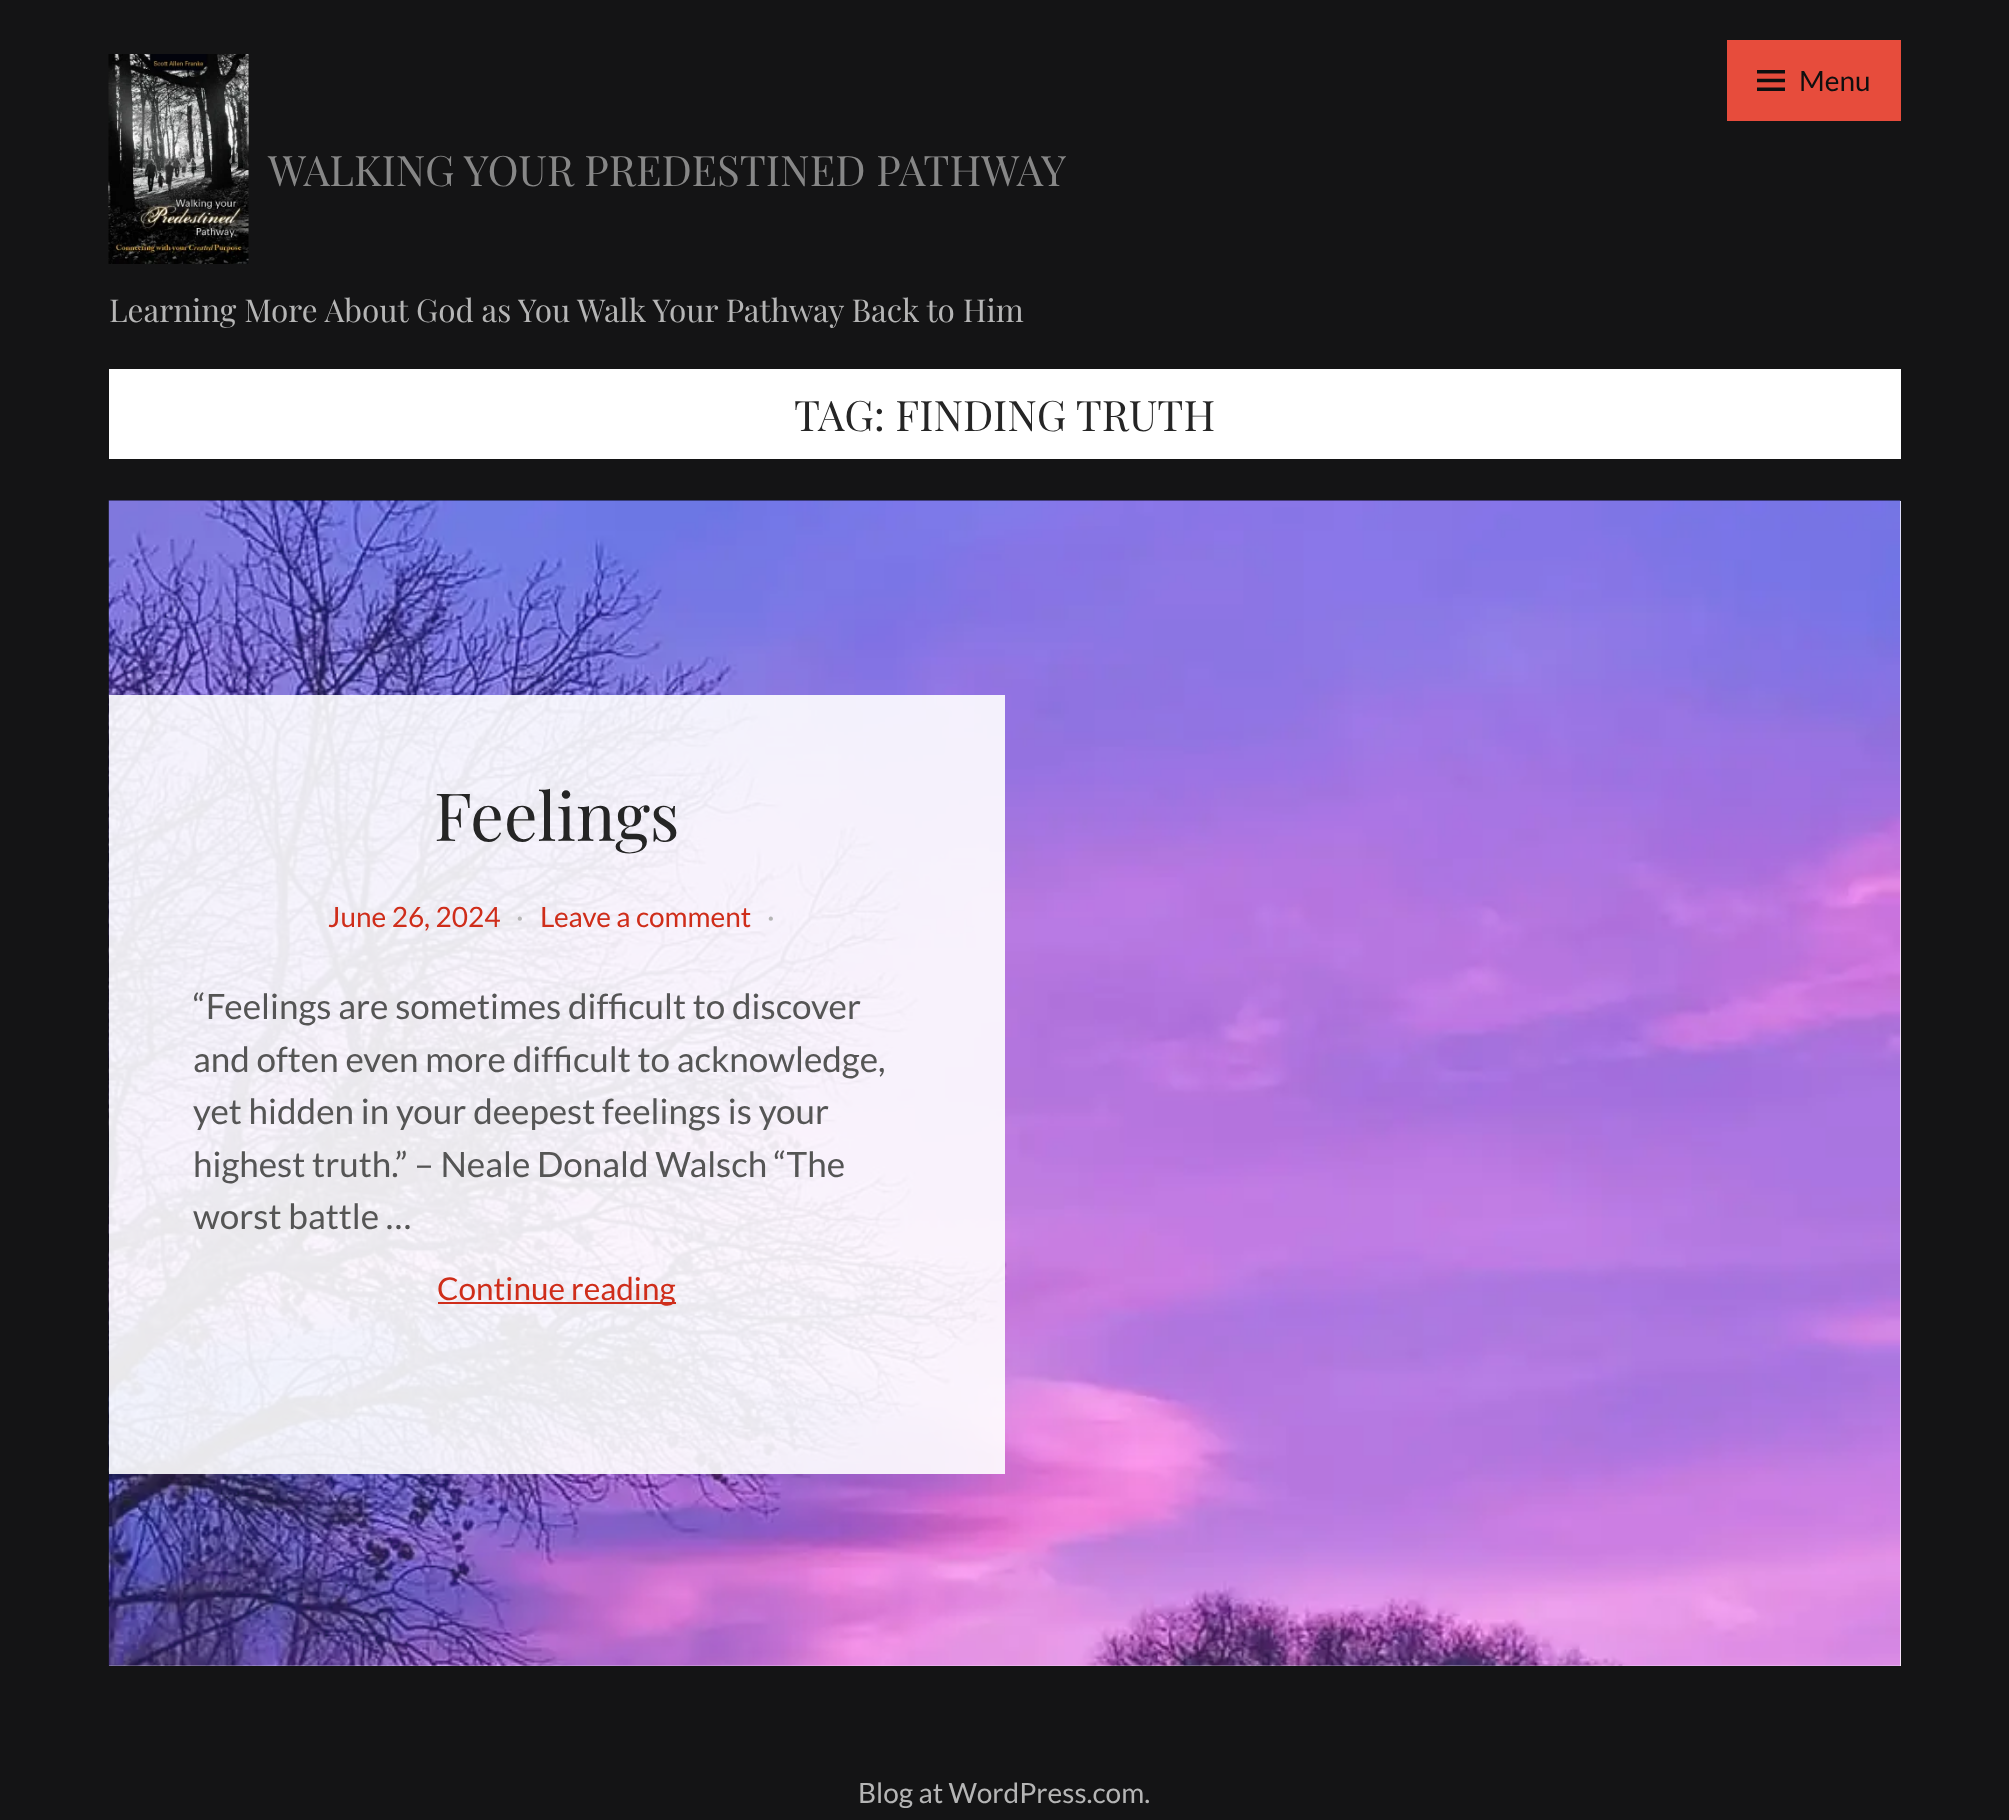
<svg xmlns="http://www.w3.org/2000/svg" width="2009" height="1820">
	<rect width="100%" height="100%" fill="#141415" />
	<rect x="1727" y="40" width="174" height="81" fill="#E74C3C" />
	<image x="1757" y="70" width="28" height="21" href="assets/img1.png" />
	<text x="1799" y="91" font-family="Lato" font-size="28" fill="#0F0F0F">Menu</text>
	<image x="108" y="54" width="141" height="210" href="assets/img2.png" />
	<text x="268" y="186" font-family="Playfair Display" font-size="42" fill="#878787">WALKING YOUR PREDESTINED PATHWAY</text>
	<text x="109" y="322" font-family="Playfair Display" font-size="31.5" fill="#B5B5B5">Learning More About God as You Walk Your Pathway Back to Him</text>
	<rect x="109" y="369" width="1792" height="90" fill="#FFFFFF" />
	<text x="794" y="431" font-family="Playfair Display" font-size="42" fill="#252525">TAG: FINDING TRUTH</text>
	<rect x="109" y="501" width="1792" height="1165" fill="#FFFFFF" />
	<image x="108" y="500" width="1793" height="1166" href="assets/img3.png" />
	<rect x="109" y="695" width="896" height="779" fill="#FFFFFF" fill-opacity="0.9" />
	<text x="434" y="841" font-family="Playfair Display" font-size="66.5" fill="#252525">Feelings</text>
	<text x="328" y="927" font-family="Lato" font-size="28" fill="#CF2D1A">June 26, 2024</text>
	<text x="516" y="927" font-family="Lato" font-size="28" fill="#B5B5B5">·</text>
	<text x="540" y="927" font-family="Lato" font-size="28" fill="#CF2D1A">Leave a comment</text>
	<text x="767" y="927" font-family="Lato" font-size="28" fill="#B5B5B5">·</text>
	<g font-family="Lato" font-size="35" fill="#555555">
		<text x="193" y="1019">“Feelings are sometimes difficult to discover</text>
		<text x="193" y="1072">and often even more difficult to acknowledge,</text>
		<text x="193" y="1124">yet hidden in your deepest feelings is your</text>
		<text x="193" y="1177">highest truth.” – Neale Donald Walsch “The</text>
		<text x="193" y="1229">worst battle …</text>
	</g>
	<rect x="438" y="1302" width="238" height="2" fill="#CF2D1A" />
	<text x="437" y="1300" font-family="Lato" font-size="31.5" fill="#CF2D1A">Continue reading</text>
	<text x="858" y="1803" font-family="Lato" font-size="28" fill="#B5B5B5">Blog at WordPress.com.</text>
</svg>
